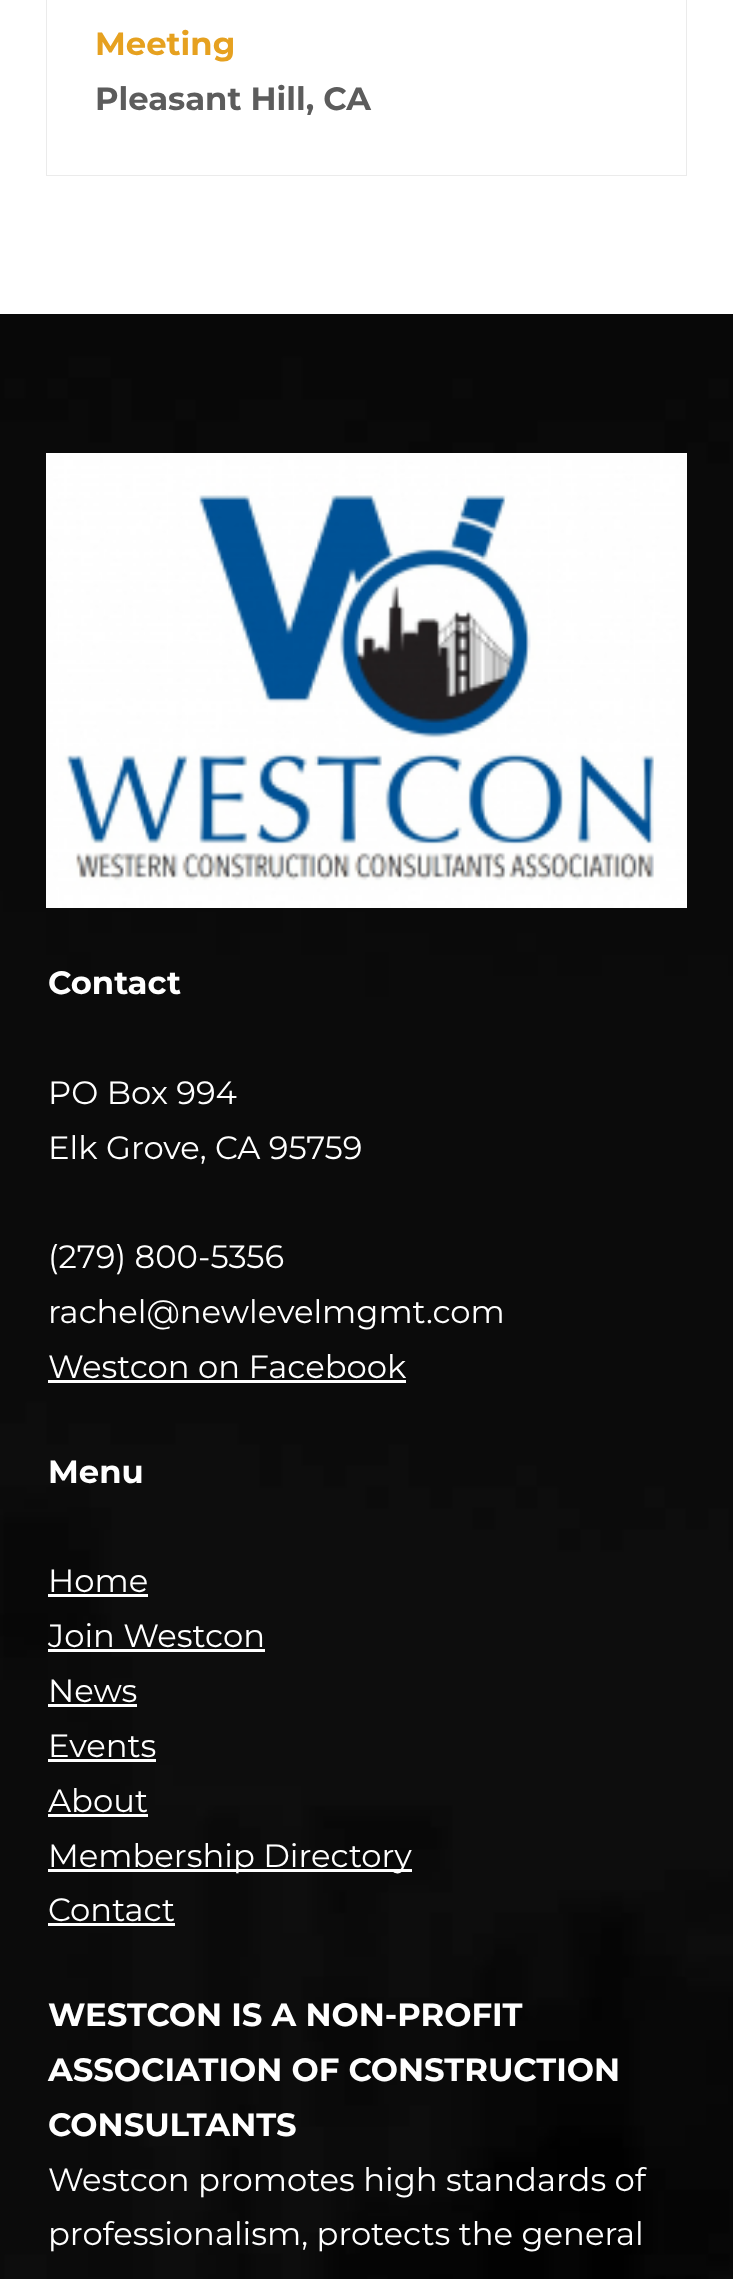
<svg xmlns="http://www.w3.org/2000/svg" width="733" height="2279">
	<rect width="100%" height="100%" fill="#FFFFFF" />
	<rect x="46.5" y="-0.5" width="640" height="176" fill="none" stroke="#EBEBEB" />
	<text x="95" y="55" font-family="Montserrat" font-size="32.25" font-weight="700" fill="#E6A120">Meeting</text>
	<text x="95" y="110" font-family="Montserrat" font-size="32.25" font-weight="700" fill="#5C5C5C">Pleasant Hill, CA</text>
	<image x="0" y="314" width="733" height="1965" href="assets/img1.png" />
	<image x="46" y="453" width="641" height="455" href="assets/img2.png" />
	<text x="48" y="994" font-family="Montserrat" font-size="32.25" font-weight="700" fill="#FFFFFF">Contact</text>
	<g font-family="Montserrat" font-size="32.25" fill="#FFFFFF">
		<text x="48" y="1104">PO Box 994</text>
		<text x="48" y="1159">Elk Grove, CA 95759</text>
		<text x="48" y="1268">(279) 800-5356</text>
		<text x="48" y="1323">rachel@newlevelmgmt.com</text>
		<text x="48" y="1378">Westcon on Facebook</text>
	</g>
	<rect x="48" y="1380" width="358" height="3" fill="#FFFFFF" />
	<text x="48" y="1483" font-family="Montserrat" font-size="32.25" font-weight="700" fill="#FFFFFF">Menu</text>
	<text x="48" y="1592" font-family="Montserrat" font-size="32.25" fill="#FFFFFF">Home</text>
	<rect x="48" y="1594" width="100" height="3" fill="#FFFFFF" />
	<text x="48" y="1647" font-family="Montserrat" font-size="32.25" fill="#FFFFFF">Join Westcon</text>
	<rect x="48" y="1649" width="217" height="3" fill="#FFFFFF" />
	<text x="48" y="1702" font-family="Montserrat" font-size="32.25" fill="#FFFFFF">News</text>
	<rect x="48" y="1704" width="89" height="3" fill="#FFFFFF" />
	<text x="48" y="1757" font-family="Montserrat" font-size="32.25" fill="#FFFFFF">Events</text>
	<rect x="48" y="1759" width="108" height="3" fill="#FFFFFF" />
	<text x="48" y="1812" font-family="Montserrat" font-size="32.25" fill="#FFFFFF">About</text>
	<rect x="48" y="1814" width="100" height="3" fill="#FFFFFF" />
	<rect x="48" y="1869" width="364" height="3" fill="#FFFFFF" />
	<g font-family="Montserrat" font-size="32.25" fill="#FFFFFF">
		<text x="48" y="1867">Membership Directory</text>
		<text x="48" y="1921">Contact</text>
	</g>
	<rect x="48" y="1923" width="127" height="3" fill="#FFFFFF" />
	<g font-family="Montserrat" font-size="32.25" font-weight="700" fill="#FFFFFF">
		<text x="48" y="2026">WESTCON IS A NON-PROFIT</text>
		<text x="48" y="2081">ASSOCIATION OF CONSTRUCTION</text>
		<text x="48" y="2136">CONSULTANTS</text>
	</g>
	<g font-family="Montserrat" font-size="32.25" fill="#FFFFFF">
		<text x="48" y="2191">Westcon promotes high standards of</text>
		<text x="48" y="2245">professionalism, protects the general</text>
	</g>
</svg>
